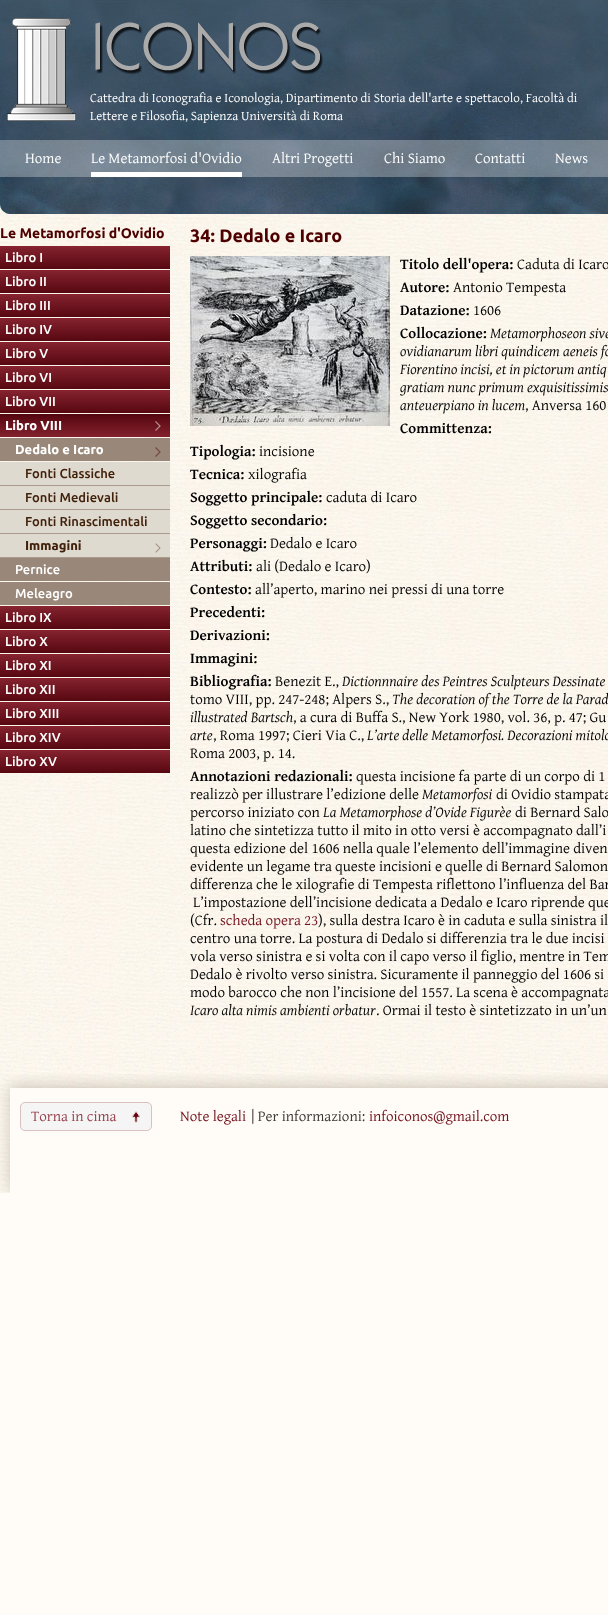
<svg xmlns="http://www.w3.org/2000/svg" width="608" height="1615">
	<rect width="100%" height="100%" fill="#FFFCF7" />
	<image x="0" y="901" width="608" height="292" href="assets/img1.png" />
	<image x="0" y="0" width="608" height="215" href="assets/img2.png" />
	<image x="7" y="18" width="316" height="103" href="assets/img3.png" />
	<g font-family="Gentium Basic" font-size="13" fill="#FFFFFF">
		<text x="90" y="102">Cattedra di Iconografia e Iconologia, Dipartimento di Storia dell'arte e spettacolo, Facoltà di</text>
		<text x="90" y="120">Lettere e Filosofia, Sapienza Università di Roma</text>
	</g>
	<rect x="0" y="140" width="608" height="37" fill="#FFFFFF" fill-opacity="0.3" />
	<text x="25" y="163" font-family="Gentium Basic" font-size="15" fill="#FFFFFF">Home</text>
	<rect x="91" y="172" width="151" height="5" fill="#FFFFFF" />
	<g font-family="Gentium Basic" font-size="15" fill="#FFFFFF">
		<text x="91" y="163">Le Metamorfosi d'Ovidio</text>
		<text x="272" y="163">Altri Progetti</text>
		<text x="384" y="163">Chi Siamo</text>
		<text x="475" y="163">Contatti</text>
		<text x="555" y="163">News</text>
	</g>
	<image x="0" y="215" width="608" height="686" href="assets/img4.png" />
	<text x="0" y="238" font-family="Ubuntu" font-size="14" font-weight="700" fill="#4E0000">Le Metamorfosi d'Ovidio</text>
	<rect x="0" y="246" width="170" height="2" fill="#85222E" />
	<image x="0" y="248" width="170" height="21" href="assets/img5.png" />
	<text x="5" y="262" font-family="Ubuntu" font-size="13" font-weight="500" fill="#FFFFFF">Libro I</text>
	<rect x="0" y="270" width="170" height="2" fill="#85222E" />
	<image x="0" y="272" width="170" height="21" href="assets/img5.png" />
	<text x="5" y="286" font-family="Ubuntu" font-size="13" font-weight="500" fill="#FFFFFF">Libro II</text>
	<rect x="0" y="294" width="170" height="2" fill="#85222E" />
	<image x="0" y="296" width="170" height="21" href="assets/img5.png" />
	<text x="5" y="310" font-family="Ubuntu" font-size="13" font-weight="500" fill="#FFFFFF">Libro III</text>
	<rect x="0" y="318" width="170" height="2" fill="#85222E" />
	<image x="0" y="320" width="170" height="21" href="assets/img5.png" />
	<text x="5" y="334" font-family="Ubuntu" font-size="13" font-weight="500" fill="#FFFFFF">Libro IV</text>
	<rect x="0" y="342" width="170" height="2" fill="#85222E" />
	<image x="0" y="344" width="170" height="21" href="assets/img5.png" />
	<text x="5" y="358" font-family="Ubuntu" font-size="13" font-weight="500" fill="#FFFFFF">Libro V</text>
	<rect x="0" y="366" width="170" height="2" fill="#85222E" />
	<image x="0" y="368" width="170" height="21" href="assets/img5.png" />
	<text x="5" y="382" font-family="Ubuntu" font-size="13" font-weight="500" fill="#FFFFFF">Libro VI</text>
	<rect x="0" y="390" width="170" height="2" fill="#85222E" />
	<image x="0" y="392" width="170" height="21" href="assets/img5.png" />
	<text x="5" y="406" font-family="Ubuntu" font-size="13" font-weight="500" fill="#FFFFFF">Libro VII</text>
	<rect x="0" y="414" width="170" height="2" fill="#54060F" />
	<image x="0" y="416" width="170" height="21" href="assets/img6.png" />
	<text x="5" y="430" font-family="Ubuntu" font-size="13" font-weight="700" fill="#FFFFFF">Libro VIII</text>
	<rect x="0" y="438" width="170" height="23" fill="#998879" />
	<image x="155" y="447" width="6" height="10" href="assets/img7.png" />
	<text x="15" y="454" font-family="Ubuntu" font-size="13" font-weight="700" fill="#FFFFFF">Dedalo e Icaro</text>
	<rect x="0" y="462" width="170" height="23" fill="#DFDAD0" />
	<rect x="0" y="485" width="170" height="1" fill="#AB9B8C" />
	<text x="25" y="478" font-family="Ubuntu" font-size="13" font-weight="500" fill="#42210B">Fonti Classiche</text>
	<rect x="0" y="486" width="170" height="23" fill="#DFDAD0" />
	<rect x="0" y="509" width="170" height="1" fill="#AB9B8C" />
	<text x="25" y="502" font-family="Ubuntu" font-size="13" font-weight="500" fill="#42210B">Fonti Medievali</text>
	<rect x="0" y="510" width="170" height="23" fill="#DFDAD0" />
	<rect x="0" y="533" width="170" height="1" fill="#AB9B8C" />
	<text x="25" y="526" font-family="Ubuntu" font-size="13" font-weight="500" fill="#42210B">Fonti Rinascimentali</text>
	<rect x="0" y="534" width="170" height="23" fill="#DFDAD0" />
	<image x="155" y="543" width="6" height="10" href="assets/img8.png" />
	<rect x="0" y="557" width="170" height="1" fill="#AB9B8C" />
	<text x="25" y="550" font-family="Ubuntu" font-size="13" font-weight="700" fill="#42210B">Immagini</text>
	<rect x="0" y="558" width="170" height="23" fill="#998879" />
	<text x="15" y="574" font-family="Ubuntu" font-size="13" font-weight="500" fill="#FFFFFF">Pernice</text>
	<rect x="0" y="582" width="170" height="23" fill="#998879" />
	<text x="15" y="598" font-family="Ubuntu" font-size="13" font-weight="500" fill="#FFFFFF">Meleagro</text>
	<rect x="0" y="606" width="170" height="2" fill="#85222E" />
	<image x="0" y="608" width="170" height="21" href="assets/img5.png" />
	<text x="5" y="622" font-family="Ubuntu" font-size="13" font-weight="500" fill="#FFFFFF">Libro IX</text>
	<rect x="0" y="630" width="170" height="2" fill="#85222E" />
	<image x="0" y="632" width="170" height="21" href="assets/img5.png" />
	<text x="5" y="646" font-family="Ubuntu" font-size="13" font-weight="500" fill="#FFFFFF">Libro X</text>
	<rect x="0" y="654" width="170" height="2" fill="#85222E" />
	<image x="0" y="656" width="170" height="21" href="assets/img5.png" />
	<text x="5" y="670" font-family="Ubuntu" font-size="13" font-weight="500" fill="#FFFFFF">Libro XI</text>
	<rect x="0" y="678" width="170" height="2" fill="#85222E" />
	<image x="0" y="680" width="170" height="21" href="assets/img5.png" />
	<text x="5" y="694" font-family="Ubuntu" font-size="13" font-weight="500" fill="#FFFFFF">Libro XII</text>
	<rect x="0" y="702" width="170" height="2" fill="#85222E" />
	<image x="0" y="704" width="170" height="21" href="assets/img5.png" />
	<text x="5" y="718" font-family="Ubuntu" font-size="13" font-weight="500" fill="#FFFFFF">Libro XIII</text>
	<rect x="0" y="726" width="170" height="2" fill="#85222E" />
	<image x="0" y="728" width="170" height="21" href="assets/img5.png" />
	<text x="5" y="742" font-family="Ubuntu" font-size="13" font-weight="500" fill="#FFFFFF">Libro XIV</text>
	<rect x="0" y="750" width="170" height="2" fill="#85222E" />
	<image x="0" y="752" width="170" height="21" href="assets/img5.png" />
	<text x="5" y="766" font-family="Ubuntu" font-size="13" font-weight="500" fill="#FFFFFF">Libro XV</text>
	<text x="190" y="242" font-family="Ubuntu" font-size="18" font-weight="700" fill="#4E0000">34: Dedalo e Icaro</text>
	<image x="190" y="256" width="200" height="170" href="assets/img9.png" />
	<text x="400" y="269" font-family="Gentium Basic" font-size="15" font-weight="700" fill="#000000">Titolo dell'opera:</text>
	<text x="517" y="269" font-family="Gentium Basic" font-size="15" fill="#000000">Caduta di Icaro</text>
	<text x="400" y="292" font-family="Gentium Basic" font-size="15" font-weight="700" fill="#000000">Autore:</text>
	<text x="453" y="292" font-family="Gentium Basic" font-size="15" fill="#000000">Antonio Tempesta</text>
	<text x="400" y="315" font-family="Gentium Basic" font-size="15" font-weight="700" fill="#000000">Datazione:</text>
	<text x="473" y="315" font-family="Gentium Basic" font-size="15" fill="#000000">1606</text>
	<text x="400" y="338" font-family="Gentium Basic" font-size="15" font-weight="700" fill="#000000">Collocazione:</text>
	<g font-family="Gentium Basic" font-size="15" font-style="italic" fill="#000000">
		<text x="490" y="338">Metamorphoseon sive</text>
		<text x="400" y="356">ovidianarum libri quindicem aeneis fo</text>
		<text x="400" y="374">Fiorentino incisi, et in pictorum antiq</text>
		<text x="400" y="392">gratiam nunc primum exquisitissimis</text>
		<text x="400" y="410">anteuerpiano in lucem</text>
	</g>
	<text x="525" y="410" font-family="Gentium Basic" font-size="15" fill="#000000">, Anversa 160</text>
	<g font-family="Gentium Basic" font-size="15" font-weight="700" fill="#000000">
		<text x="400" y="433">Committenza:</text>
		<text x="190" y="456">Tipologia:</text>
	</g>
	<text x="259" y="456" font-family="Gentium Basic" font-size="15" fill="#000000">incisione</text>
	<text x="190" y="479" font-family="Gentium Basic" font-size="15" font-weight="700" fill="#000000">Tecnica:</text>
	<text x="248" y="479" font-family="Gentium Basic" font-size="15" fill="#000000">xilografia</text>
	<text x="190" y="502" font-family="Gentium Basic" font-size="15" font-weight="700" fill="#000000">Soggetto principale:</text>
	<text x="326" y="502" font-family="Gentium Basic" font-size="15" fill="#000000">caduta di Icaro</text>
	<g font-family="Gentium Basic" font-size="15" font-weight="700" fill="#000000">
		<text x="190" y="525">Soggetto secondario:</text>
		<text x="190" y="548">Personaggi:</text>
	</g>
	<text x="270" y="548" font-family="Gentium Basic" font-size="15" fill="#000000">Dedalo e Icaro</text>
	<text x="190" y="571" font-family="Gentium Basic" font-size="15" font-weight="700" fill="#000000">Attributi:</text>
	<text x="256" y="571" font-family="Gentium Basic" font-size="15" fill="#000000">ali (Dedalo e Icaro)</text>
	<text x="190" y="594" font-family="Gentium Basic" font-size="15" font-weight="700" fill="#000000">Contesto:</text>
	<text x="255" y="594" font-family="Gentium Basic" font-size="15" fill="#000000">all’aperto, marino nei pressi di una torre</text>
	<g font-family="Gentium Basic" font-size="15" font-weight="700" fill="#000000">
		<text x="190" y="617">Precedenti:</text>
		<text x="190" y="640">Derivazioni:</text>
		<text x="190" y="663">Immagini:</text>
		<text x="190" y="686">Bibliografia:</text>
	</g>
	<text x="275" y="686" font-family="Gentium Basic" font-size="15" fill="#000000">Benezit E.,</text>
	<text x="342" y="686" font-family="Gentium Basic" font-size="15" font-style="italic" fill="#000000">Dictionnnaire des Peintres Sculpteurs Dessinate</text>
	<text x="190" y="704" font-family="Gentium Basic" font-size="15" fill="#000000">tomo VIII, pp. 247-248; Alpers S.,</text>
	<g font-family="Gentium Basic" font-size="15" font-style="italic" fill="#000000">
		<text x="392" y="704">The decoration of the Torre de la Parad</text>
		<text x="190" y="722">illustrated Bartsch</text>
	</g>
	<text x="293" y="722" font-family="Gentium Basic" font-size="15" fill="#000000">, a cura di Buffa S., New York 1980, vol. 36, p. 47; Gu</text>
	<text x="190" y="740" font-family="Gentium Basic" font-size="15" font-style="italic" fill="#000000">arte</text>
	<text x="213" y="740" font-family="Gentium Basic" font-size="15" fill="#000000">, Roma 1997; Cieri Via C.,</text>
	<text x="367" y="740" font-family="Gentium Basic" font-size="15" font-style="italic" fill="#000000">L’arte delle Metamorfosi. Decorazioni mitolo</text>
	<text x="190" y="758" font-family="Gentium Basic" font-size="15" fill="#000000">Roma 2003, p. 14.</text>
	<text x="190" y="781" font-family="Gentium Basic" font-size="15" font-weight="700" fill="#000000">Annotazioni redazionali:</text>
	<g font-family="Gentium Basic" font-size="15" fill="#000000">
		<text x="356" y="781">questa incisione fa parte di un corpo di 1</text>
		<text x="190" y="799">realizzò per illustrare l’edizione delle</text>
	</g>
	<text x="422" y="799" font-family="Gentium Basic" font-size="15" font-style="italic" fill="#000000">Metamorfosi</text>
	<g font-family="Gentium Basic" font-size="15" fill="#000000">
		<text x="496" y="799">di Ovidio stampata</text>
		<text x="190" y="817">percorso iniziato con</text>
	</g>
	<text x="323" y="817" font-family="Gentium Basic" font-size="15" font-style="italic" fill="#000000">La Metamorphose d’Ovide Figurèe</text>
	<g font-family="Gentium Basic" font-size="15" fill="#000000">
		<text x="515" y="817">di Bernard Salo</text>
		<text x="190" y="835">latino che sintetizza tutto il mito in otto versi è accompagnato dall’i</text>
		<text x="190" y="853">questa edizione del 1606 nella quale l’elemento dell’immagine diven</text>
		<text x="190" y="871">evidente un legame tra queste incisioni e quelle di Bernard Salomon</text>
		<text x="190" y="889">differenza che le xilografie di Tempesta riflettono l’influenza del Bar</text>
		<text x="193" y="907">L’impostazione dell’incisione dedicata a Dedalo e Icaro riprende que</text>
		<text x="190" y="925">(Cfr.</text>
	</g>
	<text x="220" y="925" font-family="Gentium Basic" font-size="15" fill="#72101C">scheda opera 23</text>
	<g font-family="Gentium Basic" font-size="15" fill="#000000">
		<text x="318" y="925">), sulla destra Icaro è in caduta e sulla sinistra il</text>
		<text x="190" y="943">centro una torre. La postura di Dedalo si differenzia tra le due incisi</text>
		<text x="190" y="961">vola verso sinistra e si volta con il capo verso il figlio, mentre in Tem</text>
		<text x="190" y="979">Dedalo è rivolto verso sinistra. Sicuramente il panneggio del 1606 si</text>
		<text x="190" y="997">modo barocco che non l’incisione del 1557. La scena è accompagnata</text>
	</g>
	<text x="190" y="1015" font-family="Gentium Basic" font-size="15" font-style="italic" fill="#000000">Icaro alta nimis ambienti orbatur</text>
	<text x="376" y="1015" font-family="Gentium Basic" font-size="15" fill="#000000">. Ormai il testo è sintetizzato in un’un</text>
	<image x="0" y="1074" width="608" height="119" href="assets/img10.png" />
	<rect x="20" y="1102" width="132" height="29" rx="5" fill="#F5F5F5" />
	<image x="131" y="1111" width="10" height="12" href="assets/img11.png" />
	<rect x="20.5" y="1102.5" width="131" height="28" rx="4.5" fill="none" stroke="#DBC0C0" />
	<text x="31" y="1121" font-family="Gentium Basic" font-size="15" fill="#96424D">Torna in cima</text>
	<text x="180" y="1121" font-family="Gentium Basic" font-size="15" fill="#72101C">Note legali</text>
	<text x="251" y="1121" font-family="Gentium Basic" font-size="15" fill="#3C3834">| Per informazioni:</text>
	<text x="369" y="1121" font-family="Gentium Basic" font-size="15" fill="#72101C">infoiconos@gmail.com</text>
</svg>
